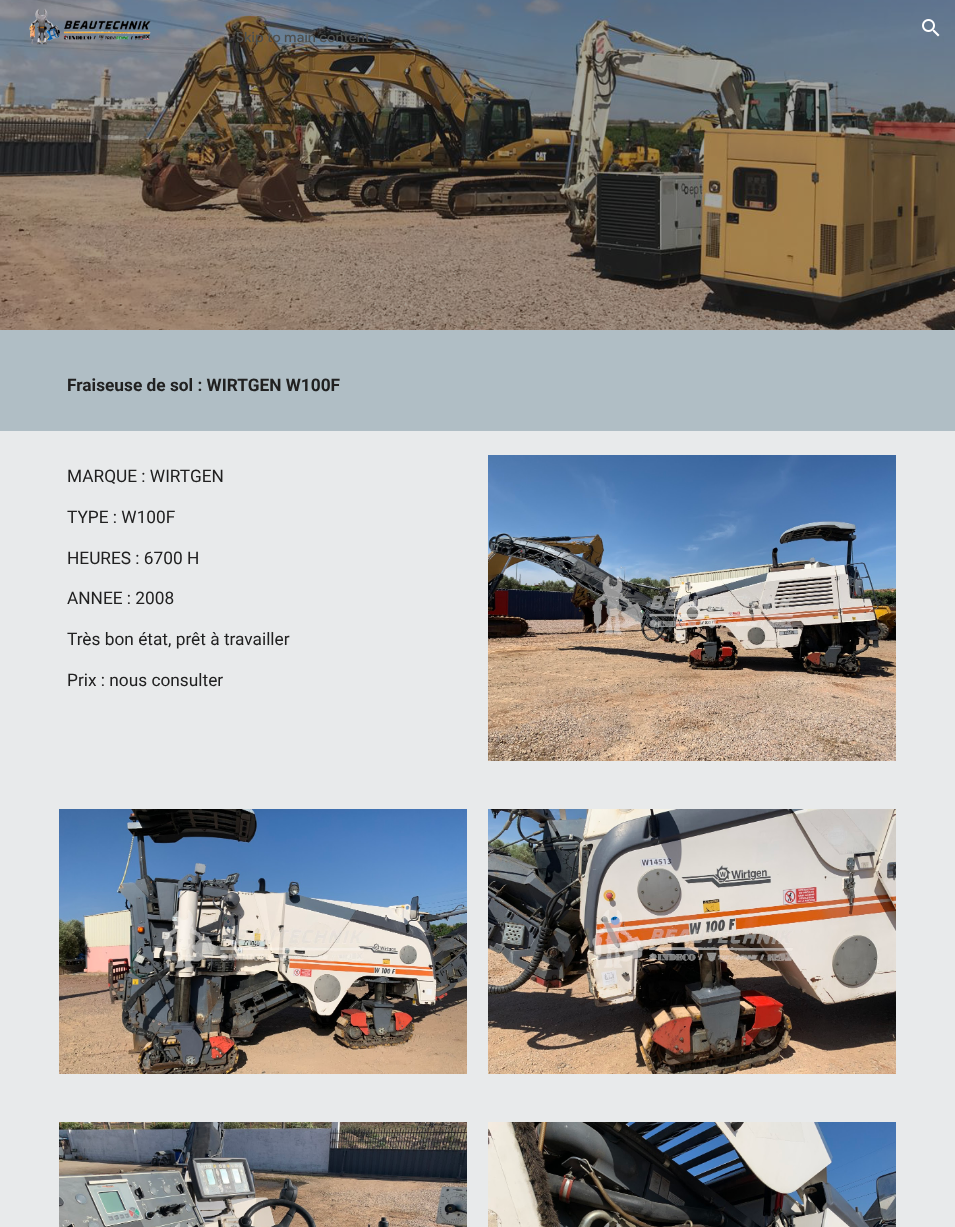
<svg xmlns="http://www.w3.org/2000/svg" width="955" height="1227">
	<rect width="100%" height="100%" fill="#E8EAEB" />
	<image x="0" y="0" width="955" height="330" href="assets/img3.png" />
	<text x="236" y="42" font-family="Google Sans" font-size="14" font-weight="500" letter-spacing="0.1" fill="#4E504F">Skip to main content</text>
	<image x="29" y="9" width="122" height="36" href="assets/img1.png" />
	<image x="922" y="19" width="18" height="18" href="assets/img2.png" />
	<rect x="0" y="330" width="955" height="101" fill="#B0BEC5" />
	<text x="67" y="391" font-family="Roboto" font-size="17.3" font-weight="700" fill="#212121">Fraiseuse de sol : WIRTGEN W100F</text>
	<g font-family="Roboto" font-size="17.3" fill="#212121">
		<text x="67" y="482">MARQUE : WIRTGEN</text>
		<text x="67" y="523">TYPE : W100F</text>
		<text x="67" y="564">HEURES : 6700 H</text>
		<text x="67" y="604">ANNEE : 2008</text>
		<text x="67" y="645">Très bon état, prêt à travailler</text>
		<text x="67" y="686">Prix : nous consulter</text>
	</g>
	<image x="488" y="455" width="408" height="306" href="assets/img4.png" />
	<image x="59" y="809" width="408" height="265" href="assets/img5.png" />
	<image x="488" y="809" width="408" height="265" href="assets/img6.png" />
	<image x="59" y="1122" width="408" height="105" href="assets/img7.png" />
	<image x="488" y="1122" width="408" height="105" href="assets/img8.png" />
</svg>
